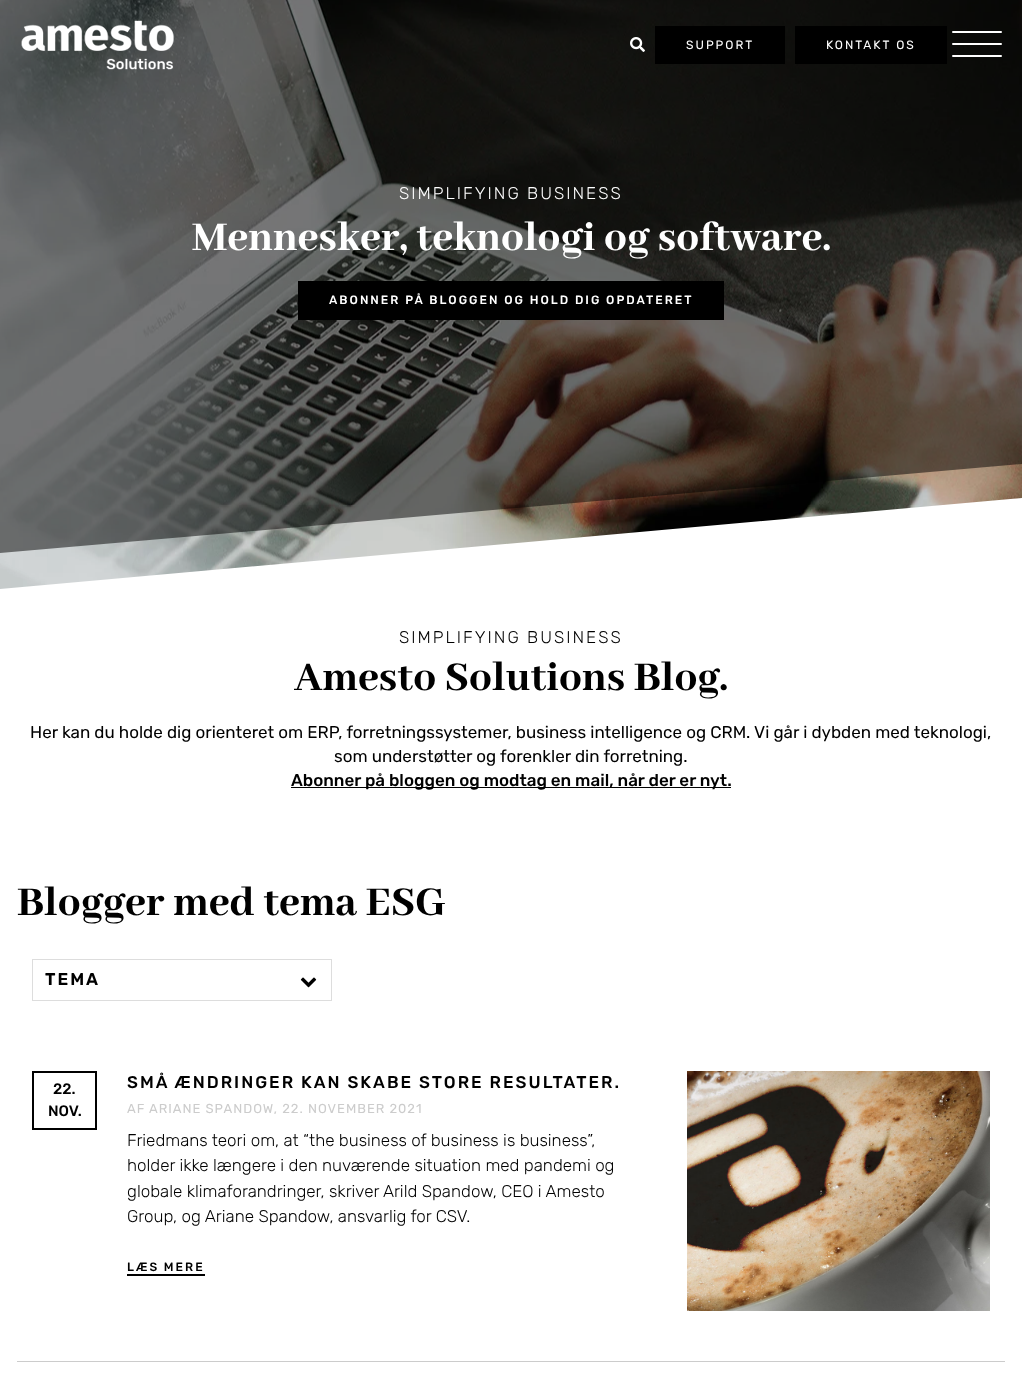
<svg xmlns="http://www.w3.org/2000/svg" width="1022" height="1378">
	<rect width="100%" height="100%" fill="#FFFFFF" />
	<image x="0" y="0" width="1022" height="589" href="assets/img1.png" />
	<path d="M0-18V553L1022 464V-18Z" fill="#000000" fill-opacity="0.5" />
	<image x="21" y="20" width="153" height="50" href="assets/img2.png" />
	<image x="630" y="37" width="15" height="15" href="assets/img3.png" />
	<rect x="655" y="26" width="130" height="38" fill="#000000" />
	<text x="686" y="49" font-family="Rubik" font-size="12" letter-spacing="2" fill="#FFFFFF">SUPPORT</text>
	<rect x="795" y="26" width="152" height="38" fill="#000000" />
	<text x="826" y="49" font-family="Rubik" font-size="12" letter-spacing="2" fill="#FFFFFF">KONTAKT OS</text>
	<rect x="952" y="31" width="50" height="2" rx="1" fill="#FFFFFF" />
	<rect x="952" y="43" width="50" height="2" rx="1" fill="#FFFFFF" />
	<rect x="952" y="55" width="50" height="2" rx="1" fill="#FFFFFF" />
	<text x="399" y="199" font-family="Rubik" font-size="17" font-weight="300" letter-spacing="2" fill="#FFFFFF">SIMPLIFYING BUSINESS</text>
	<text x="192" y="250" font-family="Abhaya Libre ExtraBold" font-size="45" font-weight="800" fill="#FFFFFF">Mennesker, teknologi og software.</text>
	<rect x="298.5" y="281.5" width="425" height="38" fill="none" stroke="#000000" />
	<rect x="299" y="282" width="424" height="37" fill="#000000" />
	<text x="329" y="304" font-family="Rubik" font-size="12" font-weight="500" letter-spacing="2" fill="#FFFFFF">ABONNER PÅ BLOGGEN OG HOLD DIG OPDATERET</text>
	<text x="399" y="643" font-family="Rubik" font-size="17" font-weight="300" letter-spacing="2" fill="#000000">SIMPLIFYING BUSINESS</text>
	<text x="294" y="690" font-family="Abhaya Libre ExtraBold" font-size="45" font-weight="800" fill="#000000">Amesto Solutions Blog.</text>
	<g font-family="Rubik" font-size="17" fill="#000000">
		<text x="30" y="738">Her kan du holde dig orienteret om ERP, forretningssystemer, business intelligence og CRM. Vi går i dybden med teknologi,</text>
		<text x="334" y="762">som understøtter og forenkler din forretning.</text>
	</g>
	<rect x="291" y="787" width="440" height="1" fill="#000000" />
	<text x="291" y="786" font-family="Rubik" font-size="17" font-weight="500" fill="#000000">Abonner på bloggen og modtag en mail, når der er nyt.</text>
	<text x="17" y="915" font-family="Abhaya Libre ExtraBold" font-size="45" font-weight="800" fill="#000000">Blogger med tema ESG</text>
	<rect x="32.5" y="959.5" width="299" height="41" fill="none" stroke="#DDDDDD" />
	<text x="45" y="985" font-family="Rubik" font-size="17" font-weight="600" letter-spacing="2" fill="#000000">TEMA</text>
	<image x="300" y="977" width="17" height="11" href="assets/img4.png" />
	<rect x="17" y="1361" width="988" height="1" fill="#CCCCCC" />
	<rect x="33" y="1072" width="63" height="57" fill="none" stroke="#000000" stroke-width="2" />
	<g font-family="Rubik" font-size="15" font-weight="500" fill="#000000">
		<text x="53" y="1094">22.</text>
		<text x="48" y="1116">NOV.</text>
	</g>
	<text x="127" y="1088" font-family="Rubik" font-size="17" font-weight="500" letter-spacing="2" fill="#000000">SMÅ ÆNDRINGER KAN SKABE STORE RESULTATER.</text>
	<text x="127" y="1113" font-family="Rubik" font-size="13" letter-spacing="1" fill="#CCCCCC">AF ARIANE SPANDOW, 22. NOVEMBER 2021</text>
	<g font-family="Rubik" font-size="17" font-weight="300" fill="#000000">
		<text x="127" y="1146">Friedmans teori om, at “the business of business is business”,</text>
		<text x="127" y="1171">holder ikke længere i den nuværende situation med pandemi og</text>
		<text x="127" y="1197">globale klimaforandringer, skriver Arild Spandow, CEO i Amesto</text>
		<text x="127" y="1222">Group, og Ariane Spandow, ansvarlig for CSV.</text>
	</g>
	<rect x="127" y="1274" width="78" height="2" fill="#000000" />
	<text x="127" y="1271" font-family="Rubik" font-size="12" font-weight="500" letter-spacing="2" fill="#000000">LÆS MERE</text>
	<image x="687" y="1071" width="303" height="240" href="assets/img5.png" />
</svg>
